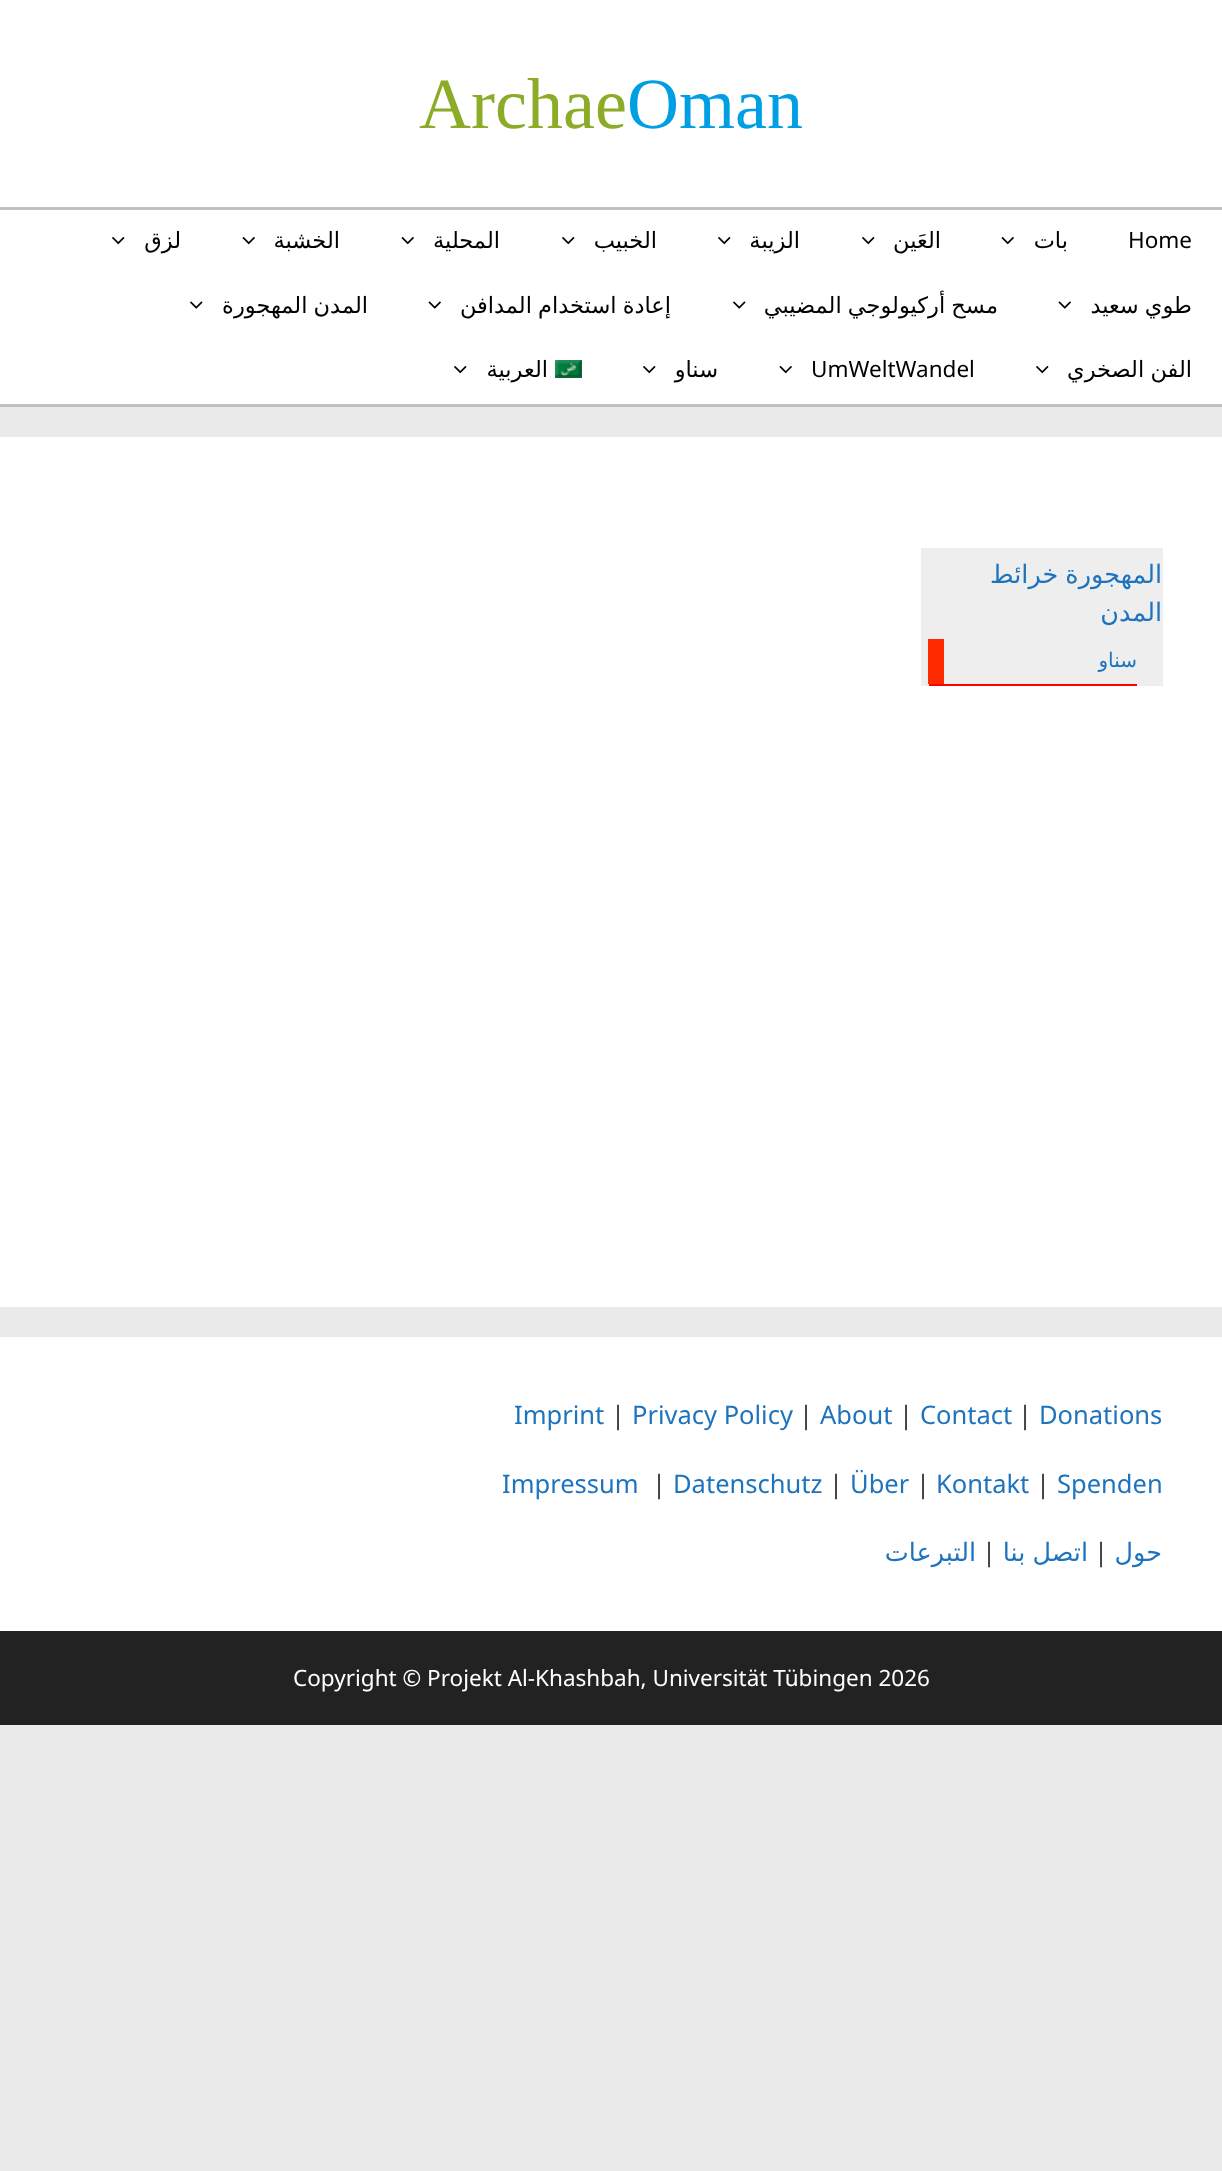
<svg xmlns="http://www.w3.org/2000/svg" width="1222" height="2171">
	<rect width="100%" height="100%" fill="#EAEAEA" />
	<rect x="0" y="0" width="1222" height="207" fill="#FFFFFF" />
	<text x="419" y="128" font-family="Liberation Serif" font-size="72" fill="#8CAC27">Archae</text>
	<text x="627" y="128" font-family="Liberation Serif" font-size="72" fill="#009FE3">Oman</text>
	<rect x="0" y="210" width="1222" height="194" fill="#FFFFFF" />
	<rect x="0" y="207" width="1222" height="3" fill="#C0C0C0" />
	<rect x="0" y="404" width="1222" height="3" fill="#C0C0C0" />
	<image x="112" y="237" width="13" height="8" href="assets/img1.png" />
	<text x="181" y="248" font-family="DejaVu Sans" font-size="22.5" direction="rtl" fill="#000000">لزق</text>
	<image x="242" y="237" width="13" height="8" href="assets/img2.png" />
	<text x="340" y="248" font-family="DejaVu Sans" font-size="22.5" direction="rtl" fill="#000000">الخشبة</text>
	<image x="401" y="237" width="13" height="8" href="assets/img2.png" />
	<text x="500" y="248" font-family="DejaVu Sans" font-size="22.5" direction="rtl" fill="#000000">المحلية</text>
	<image x="562" y="237" width="13" height="8" href="assets/img1.png" />
	<text x="657" y="248" font-family="DejaVu Sans" font-size="22.5" direction="rtl" fill="#000000">الخبيب</text>
	<image x="718" y="237" width="13" height="8" href="assets/img1.png" />
	<text x="800" y="248" font-family="DejaVu Sans" font-size="22.5" direction="rtl" fill="#000000">الزيبة</text>
	<image x="862" y="237" width="13" height="8" href="assets/img1.png" />
	<text x="941" y="248" font-family="DejaVu Sans" font-size="22.5" direction="rtl" fill="#000000">العَين</text>
	<image x="1001" y="237" width="13" height="8" href="assets/img2.png" />
	<text x="1068" y="248" font-family="DejaVu Sans" font-size="22.5" direction="rtl" fill="#000000">بات</text>
	<text x="1128" y="248" font-family="Noto Sans" font-size="22.5" fill="#000000">Home</text>
	<image x="190" y="301" width="13" height="8" href="assets/img3.png" />
	<text x="368" y="313" word-spacing="-1" font-family="DejaVu Sans" font-size="22.5" direction="rtl" fill="#000000">المدن المهجورة</text>
	<image x="428" y="301" width="13" height="8" href="assets/img4.png" />
	<text x="671" y="313" word-spacing="-1" font-family="DejaVu Sans" font-size="22.5" direction="rtl" fill="#000000">إعادة استخدام المدافن</text>
	<image x="733" y="301" width="13" height="8" href="assets/img3.png" />
	<text x="998" y="313" word-spacing="-1" font-family="DejaVu Sans" font-size="22.5" direction="rtl" fill="#000000">مسح أركيولوجي المضيبي</text>
	<image x="1058" y="301" width="13" height="8" href="assets/img4.png" />
	<text x="1192" y="313" word-spacing="-1" font-family="DejaVu Sans" font-size="22.5" direction="rtl" fill="#000000">طوي سعيد</text>
	<image x="454" y="366" width="13" height="8" href="assets/img1.png" />
	<text x="548" y="377" font-family="DejaVu Sans" font-size="22.5" direction="rtl" fill="#000000">العربية</text>
	<image x="555" y="360" width="27" height="18" href="assets/img5.png" />
	<image x="643" y="366" width="13" height="8" href="assets/img1.png" />
	<text x="718" y="377" font-family="DejaVu Sans" font-size="22.5" direction="rtl" fill="#000000">سناو</text>
	<image x="779" y="366" width="13" height="8" href="assets/img2.png" />
	<text x="811" y="377" font-family="Noto Sans" font-size="22.5" fill="#000000">UmWeltWandel</text>
	<image x="1036" y="366" width="13" height="8" href="assets/img1.png" />
	<text x="1192" y="377" word-spacing="-1" font-family="DejaVu Sans" font-size="22.5" direction="rtl" fill="#000000">الفن الصخري</text>
	<rect x="0" y="437" width="1222" height="870" fill="#FFFFFF" />
	<rect x="921" y="548" width="242" height="138" fill="#EEEEEE" />
	<g font-family="DejaVu Sans" font-size="25.5" direction="rtl" fill="#1E73BE">
		<text x="1162" y="583" word-spacing="-1">المهجورة خرائط</text>
		<text x="1162" y="621">المدن</text>
	</g>
	<rect x="928" y="639" width="16" height="45" fill="#FF2B00" />
	<rect x="929" y="684" width="208" height="2" fill="#FF0000" />
	<text x="1137" y="667" font-family="DejaVu Sans" font-size="20" direction="rtl" fill="#1E73BE">سناو</text>
	<rect x="0" y="1337" width="1222" height="294" fill="#FFFFFF" />
	<text x="514" y="1424" font-family="Noto Sans" font-size="25.5" fill="#1E73BE">Imprint</text>
	<text x="611" y="1424" font-family="Noto Sans" font-size="25.5" fill="#3A3A3A">|</text>
	<text x="632" y="1424" font-family="Noto Sans" font-size="25.5" fill="#1E73BE">Privacy Policy</text>
	<text x="799" y="1424" font-family="Noto Sans" font-size="25.5" fill="#3A3A3A">|</text>
	<text x="820" y="1424" font-family="Noto Sans" font-size="25.5" fill="#1E73BE">About</text>
	<text x="899" y="1424" font-family="Noto Sans" font-size="25.5" fill="#3A3A3A">|</text>
	<text x="920" y="1424" font-family="Noto Sans" font-size="25.5" fill="#1E73BE">Contact</text>
	<text x="1018" y="1424" font-family="Noto Sans" font-size="25.5" fill="#3A3A3A">|</text>
	<g font-family="Noto Sans" font-size="25.5" fill="#1E73BE">
		<text x="1039" y="1424">Donations</text>
		<text x="502" y="1493">Impressum</text>
	</g>
	<text x="652" y="1493" font-family="Noto Sans" font-size="25.5" fill="#3A3A3A">|</text>
	<text x="673" y="1493" font-family="Noto Sans" font-size="25.5" fill="#1E73BE">Datenschutz</text>
	<text x="829" y="1493" font-family="Noto Sans" font-size="25.5" fill="#3A3A3A">|</text>
	<text x="850" y="1493" font-family="Noto Sans" font-size="25.5" fill="#1E73BE">Über</text>
	<text x="916" y="1493" font-family="Noto Sans" font-size="25.5" fill="#3A3A3A">|</text>
	<text x="936" y="1493" font-family="Noto Sans" font-size="25.5" fill="#1E73BE">Kontakt</text>
	<text x="1036" y="1493" font-family="Noto Sans" font-size="25.5" fill="#3A3A3A">|</text>
	<text x="1057" y="1493" font-family="Noto Sans" font-size="25.5" fill="#1E73BE">Spenden</text>
	<text x="976" y="1561" font-family="DejaVu Sans" font-size="25.5" direction="rtl" fill="#1E73BE">التبرعات</text>
	<text x="982" y="1561" font-family="Noto Sans" font-size="25.5" fill="#3A3A3A">|</text>
	<text x="1088" y="1561" word-spacing="-1" font-family="DejaVu Sans" font-size="25.5" direction="rtl" fill="#1E73BE">اتصل بنا</text>
	<text x="1094" y="1561" font-family="Noto Sans" font-size="25.5" fill="#3A3A3A">|</text>
	<text x="1162" y="1561" font-family="DejaVu Sans" font-size="25.5" direction="rtl" fill="#1E73BE">حول</text>
	<rect x="0" y="1631" width="1222" height="94" fill="#222222" />
	<text x="293" y="1686" font-family="Noto Sans" font-size="22.5" fill="#FFFFFF">Copyright © Projekt Al-Khashbah, Universität Tübingen 2026</text>
</svg>
